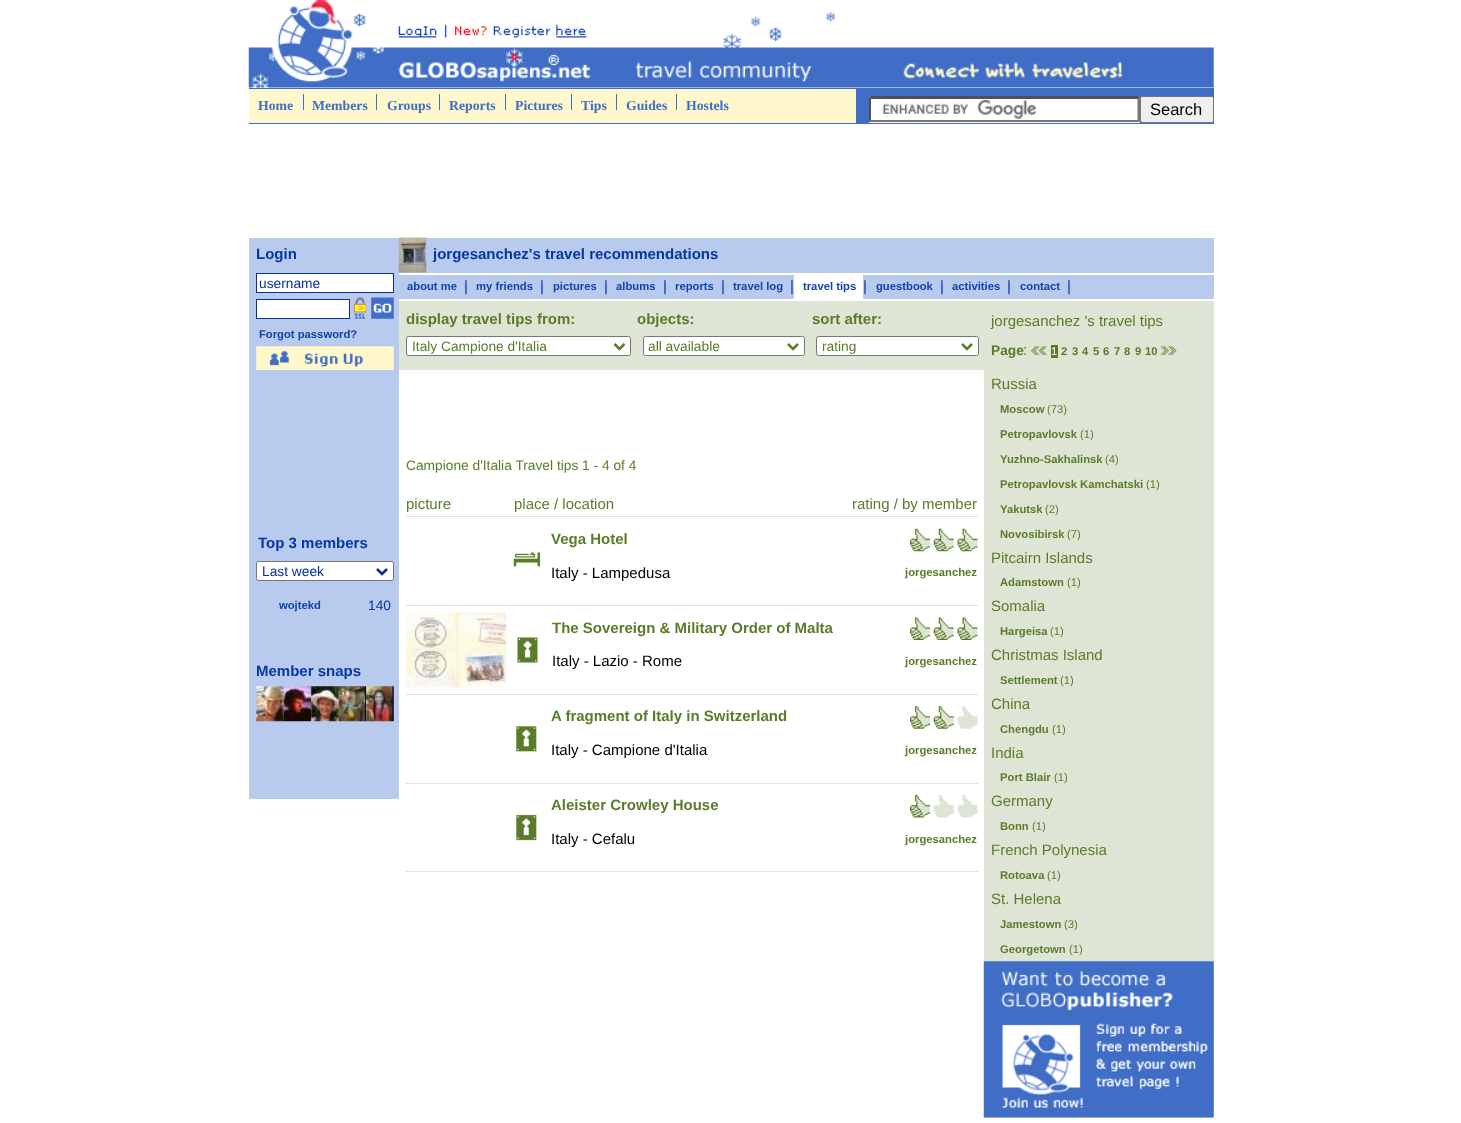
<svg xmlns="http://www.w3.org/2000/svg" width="1461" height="1123">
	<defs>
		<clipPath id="clip1"><rect x="823" y="338" width="135" height="17" /></clipPath>
	</defs>
	<rect width="100%" height="100%" fill="#FFFFFF" />
	<image x="248" y="0" width="966" height="88" href="assets/img1.png" />
	<rect x="249" y="88" width="965" height="36" fill="#406EC6" />
	<rect x="249" y="89" width="607" height="34" fill="#FFF8CC" />
	<text x="258" y="110" font-family="Liberation Serif" font-size="13.75" font-weight="700" fill="#406EC6">Home</text>
	<rect x="303" y="94" width="1" height="16" fill="#406EC6" />
	<text x="312" y="110" font-family="Liberation Serif" font-size="13.75" font-weight="700" fill="#406EC6">Members</text>
	<rect x="376" y="94" width="1" height="16" fill="#406EC6" />
	<text x="387" y="110" font-family="Liberation Serif" font-size="13.75" font-weight="700" fill="#406EC6">Groups</text>
	<rect x="439" y="94" width="1" height="16" fill="#406EC6" />
	<text x="449" y="110" font-family="Liberation Serif" font-size="13.75" font-weight="700" fill="#406EC6">Reports</text>
	<rect x="505" y="94" width="1" height="16" fill="#406EC6" />
	<text x="515" y="110" font-family="Liberation Serif" font-size="13.75" font-weight="700" fill="#406EC6">Pictures</text>
	<rect x="571" y="94" width="1" height="16" fill="#406EC6" />
	<text x="581" y="110" font-family="Liberation Serif" font-size="13.75" font-weight="700" fill="#406EC6">Tips</text>
	<rect x="616" y="94" width="1" height="16" fill="#406EC6" />
	<text x="626" y="110" font-family="Liberation Serif" font-size="13.75" font-weight="700" fill="#406EC6">Guides</text>
	<rect x="676" y="94" width="1" height="16" fill="#406EC6" />
	<text x="686" y="110" font-family="Liberation Serif" font-size="13.75" font-weight="700" fill="#406EC6">Hostels</text>
	<rect x="869" y="96" width="271" height="27" fill="#FFFFFF" />
	<image x="882" y="100" width="155" height="19" href="assets/img2.png" />
	<path d="M869 96H1140L1138 99H871Z" fill="#4F4F4F" />
	<path d="M1140 96V122.5L1137.5 120V99Z" fill="#767676" />
	<path d="M1140 122H869L871 120H1138Z" fill="#767676" />
	<path d="M869 122.5V96L871 99V120Z" fill="#4F4F4F" />
	<rect x="1140.5" y="96.5" width="73" height="26" rx="2" fill="#EFEFEF" stroke="#767676" />
	<text x="1150" y="115" font-family="Liberation Sans" font-size="16.5" fill="#000000">Search</text>
	<rect x="249" y="238" width="150" height="561" fill="#B8CAEE" />
	<text x="256" y="259" font-family="Liberation Sans" font-size="15" font-weight="700" fill="#0737A1">Login</text>
	<rect x="256.5" y="273.5" width="137" height="19" fill="#FFFFFF" stroke="#08318C" />
	<text x="259" y="288" font-family="Liberation Sans" font-size="13.75" fill="#08318C">username</text>
	<rect x="256.5" y="299.5" width="93" height="19" fill="#FFFFFF" stroke="#08318C" />
	<image x="353" y="297" width="14" height="22" href="assets/img3.png" />
	<image x="371" y="297" width="23" height="22" href="assets/img4.png" />
	<text x="259" y="338" font-family="Liberation Sans" font-size="11.25" font-weight="700" fill="#1144AA">Forgot password?</text>
	<image x="256" y="346" width="138" height="24" href="assets/img5.png" />
	<text x="258" y="548" font-family="Liberation Sans" font-size="15" font-weight="700" fill="#0737A1">Top 3 members</text>
	<rect x="256.5" y="561.5" width="137" height="19" rx="2" fill="#FFFFFF" stroke="#767676" />
	<path d="M377 569L382 574L387 569" fill="none" stroke="#08318C" stroke-width="2.5" />
	<text x="262" y="576" font-family="Liberation Sans" font-size="13.75" fill="#08318C">Last week</text>
	<text x="279" y="609" font-family="Liberation Sans" font-size="11.25" font-weight="700" fill="#1144AA">wojtekd</text>
	<text x="368" y="610" font-family="Liberation Sans" font-size="13.75" fill="#0737A1">140</text>
	<text x="256" y="676" font-family="Liberation Sans" font-size="15" font-weight="700" fill="#0737A1">Member snaps</text>
	<image x="256" y="686" width="28" height="36" href="assets/img6.png" />
	<image x="283" y="686" width="29" height="36" href="assets/img7.png" />
	<image x="311" y="686" width="28" height="36" href="assets/img8.png" />
	<image x="338" y="686" width="29" height="36" href="assets/img9.png" />
	<image x="366" y="686" width="28" height="36" href="assets/img10.png" />
	<rect x="399" y="238" width="815" height="35" fill="#B8CAEE" />
	<image x="398" y="237" width="29" height="36" href="assets/img11.png" />
	<text x="433" y="259" font-family="Liberation Sans" font-size="15" font-weight="700" fill="#0737A1">jorgesanchez's travel recommendations</text>
	<rect x="399" y="275" width="815" height="24" fill="#B8CAEE" />
	<text x="407" y="290" font-family="Liberation Sans" font-size="11.25" font-weight="700" fill="#1144AA">about me</text>
	<text x="464" y="291" font-family="Liberation Sans" font-size="15" fill="#0737A1">|</text>
	<text x="476" y="290" font-family="Liberation Sans" font-size="11.25" font-weight="700" fill="#1144AA">my friends</text>
	<text x="540" y="291" font-family="Liberation Sans" font-size="15" fill="#0737A1">|</text>
	<text x="553" y="290" font-family="Liberation Sans" font-size="11.25" font-weight="700" fill="#1144AA">pictures</text>
	<text x="604" y="291" font-family="Liberation Sans" font-size="15" fill="#0737A1">|</text>
	<text x="616" y="290" font-family="Liberation Sans" font-size="11.25" font-weight="700" fill="#1144AA">albums</text>
	<text x="663" y="291" font-family="Liberation Sans" font-size="15" fill="#0737A1">|</text>
	<text x="675" y="290" font-family="Liberation Sans" font-size="11.25" font-weight="700" fill="#1144AA">reports</text>
	<text x="721" y="291" font-family="Liberation Sans" font-size="15" fill="#0737A1">|</text>
	<text x="733" y="290" font-family="Liberation Sans" font-size="11.25" font-weight="700" fill="#1144AA">travel log</text>
	<text x="790" y="291" font-family="Liberation Sans" font-size="15" fill="#0737A1">|</text>
	<rect x="794" y="275" width="69" height="24" fill="#FFFFFF" />
	<text x="803" y="290" font-family="Liberation Sans" font-size="11.25" font-weight="700" fill="#1144AA">travel tips</text>
	<text x="863" y="291" font-family="Liberation Sans" font-size="15" fill="#0737A1">|</text>
	<text x="876" y="290" font-family="Liberation Sans" font-size="11.25" font-weight="700" fill="#1144AA">guestbook</text>
	<text x="940" y="291" font-family="Liberation Sans" font-size="15" fill="#0737A1">|</text>
	<text x="952" y="290" font-family="Liberation Sans" font-size="11.25" font-weight="700" fill="#1144AA">activities</text>
	<text x="1007" y="291" font-family="Liberation Sans" font-size="15" fill="#0737A1">|</text>
	<text x="1020" y="290" font-family="Liberation Sans" font-size="11.25" font-weight="700" fill="#1144AA">contact</text>
	<text x="1067" y="291" font-family="Liberation Sans" font-size="15" fill="#0737A1">|</text>
	<rect x="399" y="301" width="585" height="35" fill="#DEE5D5" />
	<g font-family="Liberation Sans" font-size="15" font-weight="700" fill="#5A7C2A">
		<text x="406" y="324">display travel tips from:</text>
		<text x="637" y="324">objects:</text>
		<text x="812" y="324">sort after:</text>
	</g>
	<rect x="399" y="336" width="585" height="34" fill="#DEE5D5" />
	<rect x="406.5" y="336.5" width="224" height="19" rx="2" fill="#FFFFFF" stroke="#767676" />
	<path d="M614.5 344L619.5 349L624.5 344" fill="none" stroke="#5A7C2A" stroke-width="2.5" />
	<text x="412" y="351" font-family="Liberation Sans" font-size="13.75" fill="#5A7C2A">Italy Campione d'Italia</text>
	<rect x="643.5" y="336.5" width="161" height="19" rx="2" fill="#FFFFFF" stroke="#767676" />
	<path d="M788 344L793 349L798 344" fill="none" stroke="#5A7C2A" stroke-width="2.5" />
	<text x="648" y="351" font-family="Liberation Sans" font-size="13.75" fill="#5A7C2A">all available</text>
	<rect x="816.5" y="336.5" width="162" height="19" rx="2" fill="#FFFFFF" stroke="#767676" />
	<path d="M962 344L967 349L972 344" fill="none" stroke="#5A7C2A" stroke-width="2.5" />
	<g clip-path="url(#clip1)">
		<text x="822" y="351" font-family="Liberation Sans" font-size="13.75" fill="#5A7C2A">rating</text>
	</g>
	<text x="406" y="470" font-family="Liberation Sans" font-size="13.75" fill="#5A7C2A">Campione d'Italia Travel tips 1 - 4 of 4</text>
	<g font-family="Liberation Sans" font-size="15" fill="#5A7C2A">
		<text x="406" y="509">picture</text>
		<text x="514" y="509">place / location</text>
		<text x="852" y="509">rating / by member</text>
	</g>
	<rect x="406" y="516" width="572" height="1" fill="#E0E3DA" />
	<text x="551" y="544" font-family="Liberation Sans" font-size="15" font-weight="700" fill="#5A7C2A">Vega Hotel</text>
	<image x="910" y="528" width="68" height="24" href="assets/img12.png" />
	<image x="513" y="552" width="28" height="15" href="assets/img13.png" />
	<text x="551" y="578" font-family="Liberation Sans" font-size="15" fill="#000000">Italy - Lampedusa</text>
	<text x="905" y="576" font-family="Liberation Sans" font-size="11.25" font-weight="700" fill="#5A7C2A">jorgesanchez</text>
	<rect x="406" y="605" width="572" height="1" fill="#E0E3DA" />
	<image x="406" y="612" width="101" height="76" href="assets/img14.png" />
	<text x="552" y="633" font-family="Liberation Sans" font-size="15" font-weight="700" fill="#5A7C2A">The Sovereign &amp; Military Order of Malta</text>
	<image x="910" y="617" width="68" height="23" href="assets/img15.png" />
	<image x="517" y="637" width="21" height="26" href="assets/img16.png" />
	<text x="552" y="666" font-family="Liberation Sans" font-size="15" fill="#000000">Italy - Lazio - Rome</text>
	<text x="905" y="665" font-family="Liberation Sans" font-size="11.25" font-weight="700" fill="#5A7C2A">jorgesanchez</text>
	<rect x="406" y="694" width="572" height="1" fill="#E0E3DA" />
	<text x="551" y="721" font-family="Liberation Sans" font-size="15" font-weight="700" fill="#5A7C2A">A fragment of Italy in Switzerland</text>
	<image x="910" y="706" width="68" height="23" href="assets/img17.png" />
	<image x="516" y="726" width="21" height="26" href="assets/img18.png" />
	<text x="551" y="755" font-family="Liberation Sans" font-size="15" fill="#000000">Italy - Campione d'Italia</text>
	<text x="905" y="754" font-family="Liberation Sans" font-size="11.25" font-weight="700" fill="#5A7C2A">jorgesanchez</text>
	<rect x="406" y="783" width="572" height="1" fill="#E0E3DA" />
	<text x="551" y="810" font-family="Liberation Sans" font-size="15" font-weight="700" fill="#5A7C2A">Aleister Crowley House</text>
	<image x="910" y="795" width="68" height="23" href="assets/img19.png" />
	<image x="516" y="814" width="21" height="27" href="assets/img20.png" />
	<text x="551" y="844" font-family="Liberation Sans" font-size="15" fill="#000000">Italy - Cefalu</text>
	<text x="905" y="843" font-family="Liberation Sans" font-size="11.25" font-weight="700" fill="#5A7C2A">jorgesanchez</text>
	<rect x="406" y="871" width="572" height="1" fill="#E0E3DA" />
	<rect x="984" y="301" width="230" height="817" fill="#DEE5D5" />
	<text x="991" y="326" font-family="Liberation Sans" font-size="15" fill="#5A7C2A">jorgesanchez 's travel tips</text>
	<text x="991" y="355" font-family="Liberation Sans" font-size="13.75" font-weight="700" fill="#5A7C2A">Page</text>
	<text x="1023" y="355" font-family="Liberation Sans" font-size="15" fill="#5A7C2A">:</text>
	<image x="1031" y="346" width="16" height="9" href="assets/img21.png" />
	<rect x="1051" y="345" width="7" height="13" fill="#5A7C2A" />
	<text x="1051" y="355" font-family="Liberation Sans" font-size="11.25" fill="#FFFFFF">1</text>
	<g font-family="Liberation Sans" font-size="11.25" font-weight="700" fill="#5A7C2A">
		<text x="1061" y="355">2</text>
		<text x="1072" y="355">3</text>
		<text x="1082" y="355">4</text>
		<text x="1093" y="355">5</text>
		<text x="1103" y="355">6</text>
		<text x="1114" y="355">7</text>
		<text x="1124" y="355">8</text>
		<text x="1135" y="355">9</text>
		<text x="1145" y="355">10</text>
	</g>
	<image x="1161" y="346" width="16" height="9" href="assets/img22.png" />
	<text x="991" y="389" font-family="Liberation Sans" font-size="15" fill="#5A7C2A">Russia</text>
	<text x="1000" y="413" font-family="Liberation Sans" font-size="11.25" font-weight="700" fill="#5A7C2A">Moscow</text>
	<text x="1047" y="413" font-family="Liberation Sans" font-size="11.25" fill="#5A7C2A">(73)</text>
	<text x="1000" y="438" font-family="Liberation Sans" font-size="11.25" font-weight="700" fill="#5A7C2A">Petropavlovsk</text>
	<text x="1080" y="438" font-family="Liberation Sans" font-size="11.25" fill="#5A7C2A">(1)</text>
	<text x="1000" y="463" font-family="Liberation Sans" font-size="11.25" font-weight="700" fill="#5A7C2A">Yuzhno-Sakhalinsk</text>
	<text x="1105" y="463" font-family="Liberation Sans" font-size="11.25" fill="#5A7C2A">(4)</text>
	<text x="1000" y="488" font-family="Liberation Sans" font-size="11.25" font-weight="700" fill="#5A7C2A">Petropavlovsk Kamchatski</text>
	<text x="1146" y="488" font-family="Liberation Sans" font-size="11.25" fill="#5A7C2A">(1)</text>
	<text x="1000" y="513" font-family="Liberation Sans" font-size="11.25" font-weight="700" fill="#5A7C2A">Yakutsk</text>
	<text x="1045" y="513" font-family="Liberation Sans" font-size="11.25" fill="#5A7C2A">(2)</text>
	<text x="1000" y="538" font-family="Liberation Sans" font-size="11.25" font-weight="700" fill="#5A7C2A">Novosibirsk</text>
	<text x="1067" y="538" font-family="Liberation Sans" font-size="11.25" fill="#5A7C2A">(7)</text>
	<text x="991" y="563" font-family="Liberation Sans" font-size="15" fill="#5A7C2A">Pitcairn Islands</text>
	<text x="1000" y="586" font-family="Liberation Sans" font-size="11.25" font-weight="700" fill="#5A7C2A">Adamstown</text>
	<text x="1067" y="586" font-family="Liberation Sans" font-size="11.25" fill="#5A7C2A">(1)</text>
	<text x="991" y="611" font-family="Liberation Sans" font-size="15" fill="#5A7C2A">Somalia</text>
	<text x="1000" y="635" font-family="Liberation Sans" font-size="11.25" font-weight="700" fill="#5A7C2A">Hargeisa</text>
	<text x="1050" y="635" font-family="Liberation Sans" font-size="11.25" fill="#5A7C2A">(1)</text>
	<text x="991" y="660" font-family="Liberation Sans" font-size="15" fill="#5A7C2A">Christmas Island</text>
	<text x="1000" y="684" font-family="Liberation Sans" font-size="11.25" font-weight="700" fill="#5A7C2A">Settlement</text>
	<text x="1060" y="684" font-family="Liberation Sans" font-size="11.25" fill="#5A7C2A">(1)</text>
	<text x="991" y="709" font-family="Liberation Sans" font-size="15" fill="#5A7C2A">China</text>
	<text x="1000" y="733" font-family="Liberation Sans" font-size="11.25" font-weight="700" fill="#5A7C2A">Chengdu</text>
	<text x="1052" y="733" font-family="Liberation Sans" font-size="11.25" fill="#5A7C2A">(1)</text>
	<text x="991" y="758" font-family="Liberation Sans" font-size="15" fill="#5A7C2A">India</text>
	<text x="1000" y="781" font-family="Liberation Sans" font-size="11.25" font-weight="700" fill="#5A7C2A">Port Blair</text>
	<text x="1054" y="781" font-family="Liberation Sans" font-size="11.25" fill="#5A7C2A">(1)</text>
	<text x="991" y="806" font-family="Liberation Sans" font-size="15" fill="#5A7C2A">Germany</text>
	<text x="1000" y="830" font-family="Liberation Sans" font-size="11.25" font-weight="700" fill="#5A7C2A">Bonn</text>
	<text x="1032" y="830" font-family="Liberation Sans" font-size="11.25" fill="#5A7C2A">(1)</text>
	<text x="991" y="855" font-family="Liberation Sans" font-size="15" fill="#5A7C2A">French Polynesia</text>
	<text x="1000" y="879" font-family="Liberation Sans" font-size="11.25" font-weight="700" fill="#5A7C2A">Rotoava</text>
	<text x="1047" y="879" font-family="Liberation Sans" font-size="11.25" fill="#5A7C2A">(1)</text>
	<text x="991" y="904" font-family="Liberation Sans" font-size="15" fill="#5A7C2A">St. Helena</text>
	<text x="1000" y="928" font-family="Liberation Sans" font-size="11.25" font-weight="700" fill="#5A7C2A">Jamestown</text>
	<text x="1064" y="928" font-family="Liberation Sans" font-size="11.25" fill="#5A7C2A">(3)</text>
	<text x="1000" y="953" font-family="Liberation Sans" font-size="11.25" font-weight="700" fill="#5A7C2A">Georgetown</text>
	<text x="1069" y="953" font-family="Liberation Sans" font-size="11.25" fill="#5A7C2A">(1)</text>
	<image x="983" y="961" width="231" height="157" href="assets/img23.png" />
</svg>
